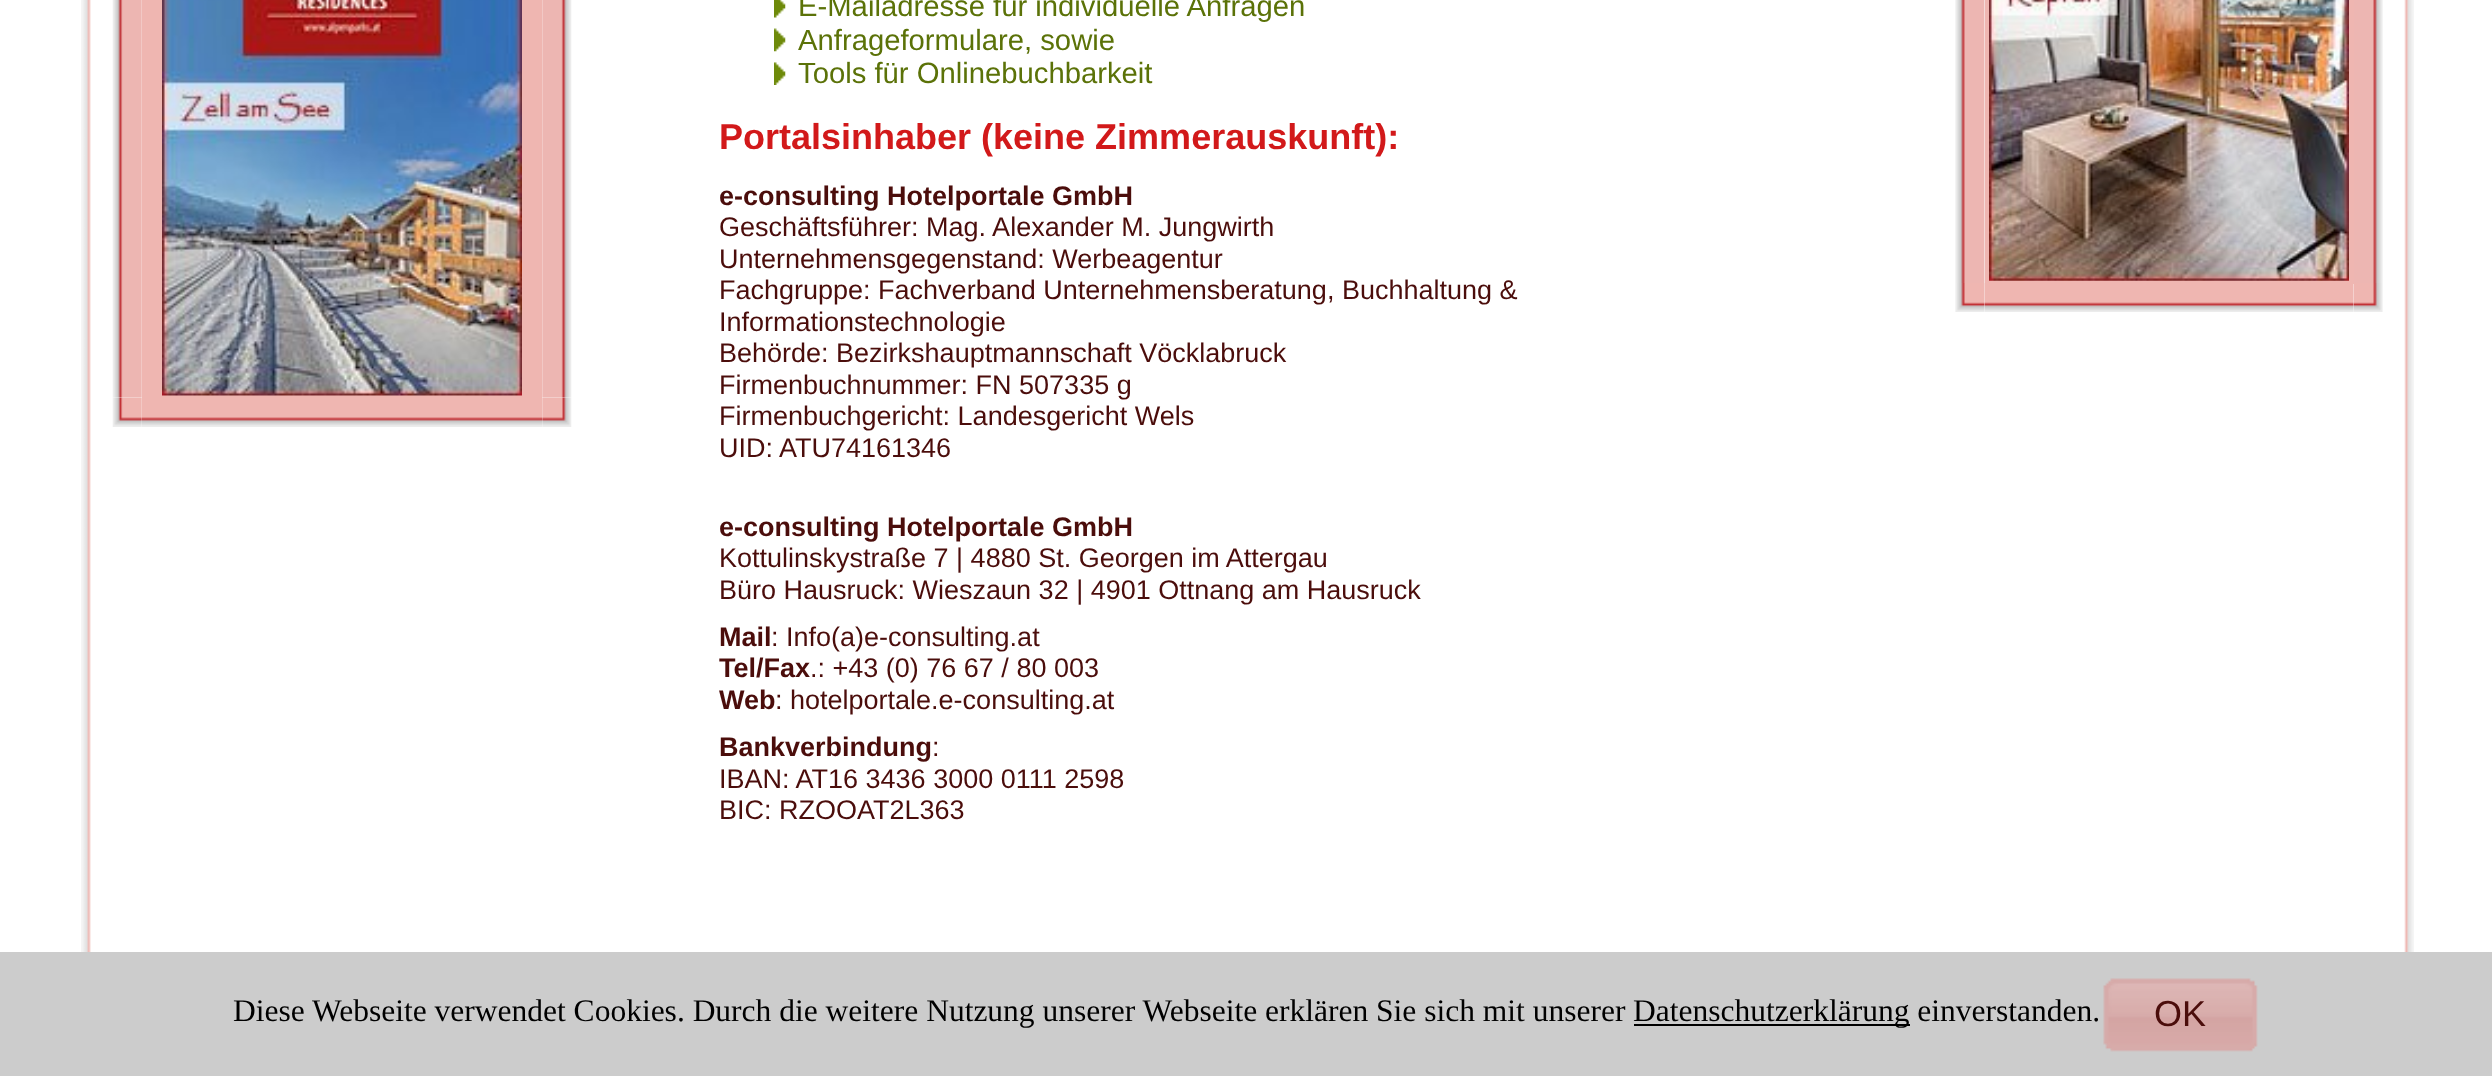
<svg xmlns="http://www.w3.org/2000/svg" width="2492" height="1076">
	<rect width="100%" height="100%" fill="#FFFFFF" />
	<image x="81" y="0" width="10" height="952" href="assets/img1.png" />
	<image x="112" y="397" width="30" height="30" href="assets/img5.png" />
	<image x="112" y="0" width="30" height="398" href="assets/img2.png" />
	<rect x="142" y="0" width="400" height="398" fill="#EFB6B1" />
	<image x="162" y="0" width="360" height="396" href="assets/img3.png" />
	<image x="542" y="397" width="30" height="30" href="assets/img7.png" />
	<image x="542" y="0" width="30" height="398" href="assets/img4.png" />
	<image x="142" y="398" width="400" height="29" href="assets/img6.png" />
	<image x="774" y="0" width="12" height="18" href="assets/img8.png" />
	<text x="798" y="16" font-family="Liberation Sans" font-size="29.25" fill="#5B7208">E-Mailadresse für individuelle Anfragen</text>
	<image x="774" y="28" width="12" height="24" href="assets/img9.png" />
	<text x="798" y="50" font-family="Liberation Sans" font-size="29.25" fill="#5B7208">Anfrageformulare, sowie</text>
	<image x="774" y="62" width="12" height="23" href="assets/img10.png" />
	<text x="798" y="83" font-family="Liberation Sans" font-size="29.25" fill="#5B7208">Tools für Onlinebuchbarkeit</text>
	<text x="719" y="149" font-family="Liberation Sans" font-size="36" font-weight="700" fill="#D2191A">Portalsinhaber (keine Zimmerauskunft):</text>
	<text x="719" y="205" font-family="Liberation Sans" font-size="27" font-weight="700" fill="#4B0D0B">e-consulting Hotelportale GmbH</text>
	<g font-family="Liberation Sans" font-size="27" fill="#4B0D0B">
		<text x="719" y="236">Geschäftsführer: Mag. Alexander M. Jungwirth</text>
		<text x="719" y="268">Unternehmensgegenstand: Werbeagentur</text>
		<text x="719" y="299">Fachgruppe: Fachverband Unternehmensberatung, Buchhaltung &amp;</text>
		<text x="719" y="331">Informationstechnologie</text>
		<text x="719" y="362">Behörde: Bezirkshauptmannschaft Vöcklabruck</text>
		<text x="719" y="394">Firmenbuchnummer: FN 507335 g</text>
		<text x="719" y="425">Firmenbuchgericht: Landesgericht Wels</text>
		<text x="719" y="457">UID: ATU74161346</text>
	</g>
	<text x="719" y="536" font-family="Liberation Sans" font-size="27" font-weight="700" fill="#4B0D0B">e-consulting Hotelportale GmbH</text>
	<g font-family="Liberation Sans" font-size="27" fill="#4B0D0B">
		<text x="719" y="567">Kottulinskystraße 7 | 4880 St. Georgen im Attergau</text>
		<text x="719" y="599">Büro Hausruck: Wieszaun 32 | 4901 Ottnang am Hausruck</text>
	</g>
	<text x="719" y="646" font-family="Liberation Sans" font-size="27" font-weight="700" fill="#4B0D0B">Mail</text>
	<text x="771" y="646" font-family="Liberation Sans" font-size="27" fill="#4B0D0B">: Info(a)e-consulting.at</text>
	<text x="719" y="677" font-family="Liberation Sans" font-size="27" font-weight="700" fill="#4B0D0B">Tel/Fax</text>
	<text x="810" y="677" font-family="Liberation Sans" font-size="27" fill="#4B0D0B">.: +43 (0) 76 67 / 80 003</text>
	<text x="719" y="709" font-family="Liberation Sans" font-size="27" font-weight="700" fill="#4B0D0B">Web</text>
	<text x="775" y="709" font-family="Liberation Sans" font-size="27" fill="#4B0D0B">: hotelportale.e-consulting.at</text>
	<text x="719" y="756" font-family="Liberation Sans" font-size="27" font-weight="700" fill="#4B0D0B">Bankverbindung</text>
	<g font-family="Liberation Sans" font-size="27" fill="#4B0D0B">
		<text x="932" y="756">:</text>
		<text x="719" y="788">IBAN: AT16 3436 3000 0111 2598</text>
		<text x="719" y="819">BIC: RZOOAT2L363</text>
	</g>
	<image x="1955" y="0" width="30" height="283" href="assets/img11.png" />
	<image x="1955" y="283" width="30" height="29" href="assets/img14.png" />
	<image x="2353" y="283" width="30" height="29" href="assets/img16.png" />
	<image x="1984" y="283" width="370" height="29" href="assets/img15.png" />
	<rect x="1985" y="0" width="369" height="284" fill="#EFB6B1" />
	<image x="1989" y="0" width="360" height="281" href="assets/img12.png" />
	<image x="2354" y="0" width="29" height="283" href="assets/img13.png" />
	<image x="2404" y="0" width="10" height="952" href="assets/img17.png" />
	<rect x="0" y="952" width="2492" height="124" fill="#CCCCCC" />
	<text x="233" y="1021" font-family="Liberation Serif" font-size="31.5" fill="#000000">Diese Webseite verwendet Cookies. Durch die weitere Nutzung unserer Webseite erklären Sie sich mit unserer</text>
	<rect x="1634" y="1024" width="276" height="2" fill="#000000" />
	<text x="1633" y="1021" font-family="Liberation Serif" font-size="31.5" fill="#000000">Datenschutzerklärung einverstanden.</text>
	<image x="2103" y="978" width="138" height="74" href="assets/img18.png" />
	<image x="2241" y="978" width="17" height="74" href="assets/img19.png" />
	<text x="2154" y="1026" font-family="Liberation Sans" font-size="36" fill="#4B0D0B">OK</text>
</svg>
